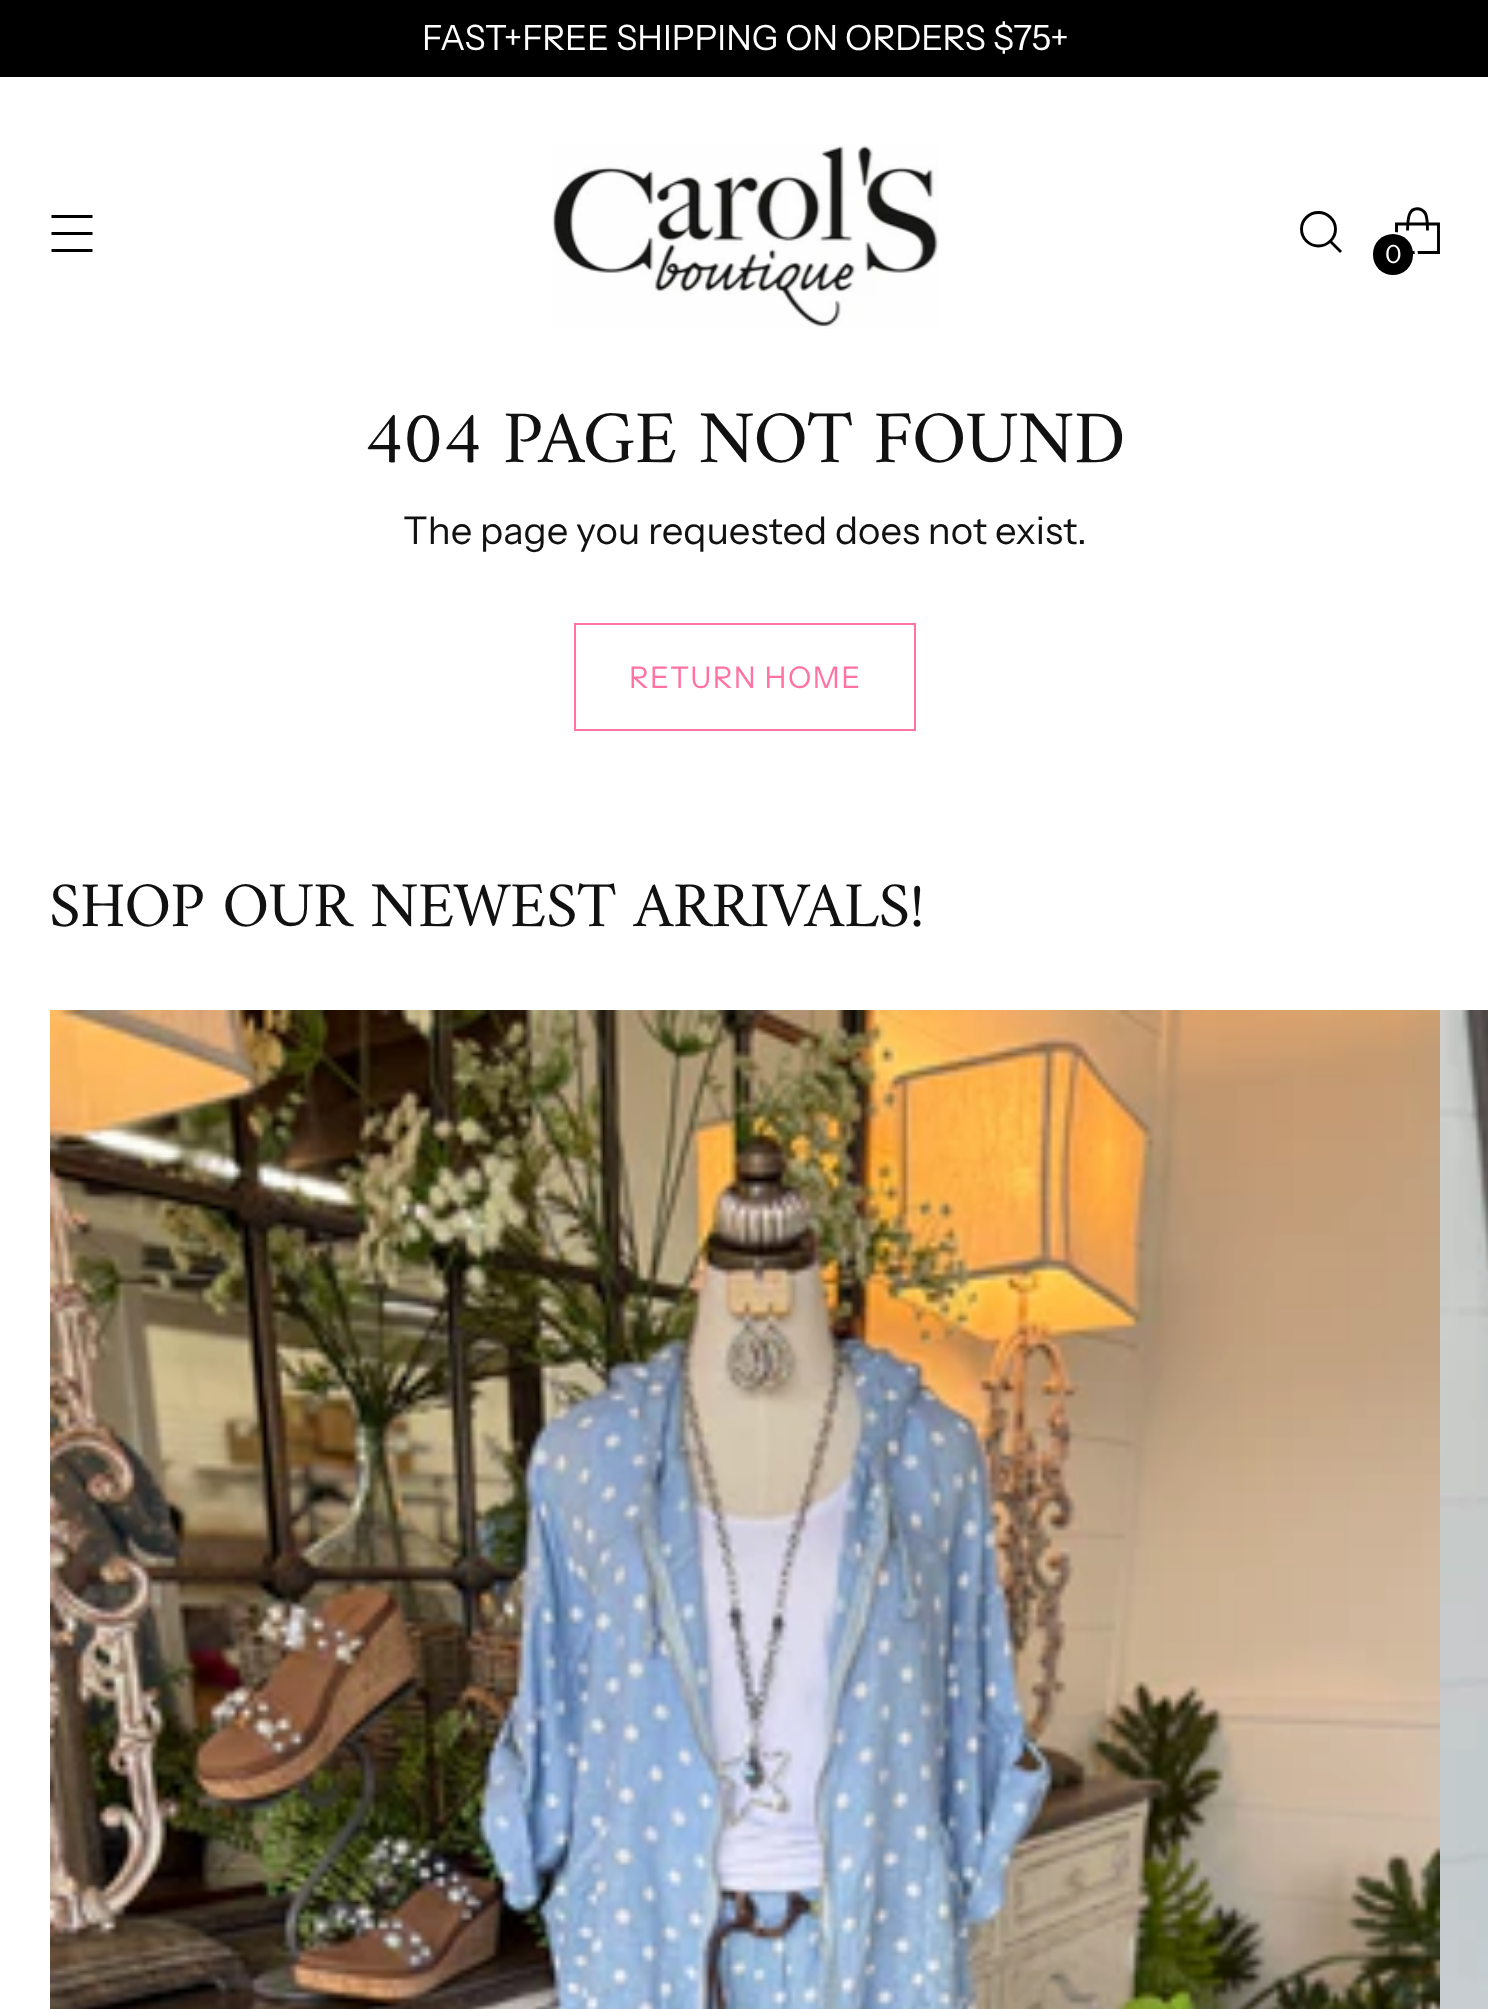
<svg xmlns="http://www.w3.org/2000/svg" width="1488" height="2009">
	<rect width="100%" height="100%" fill="#FFFFFF" />
	<rect x="0" y="0" width="1488" height="77" fill="#000000" />
	<text x="422" y="50" font-family="Instrument Sans" font-size="34.75" fill="#FFFFFF">FAST+FREE SHIPPING ON ORDERS $75+</text>
	<path d="M51.5 233.5H92.5M51.5 216.5H92.5M51.5 250.5H92.5" fill="none" stroke="#000000" stroke-width="2.9" />
	<image x="552" y="145" width="387" height="184" href="assets/img1.png" />
	<path d="M1318.5 246C1327.5 246 1335.5 238.5 1335.5 229C1335.5 220 1327.5 212.5 1318.5 212.5C1309 212.5 1301.5 220 1301.5 229C1301.5 238.5 1309 246 1318.5 246Z" fill="none" stroke="#000000" stroke-width="2.9" stroke-linecap="round" />
	<path d="M1330.5 241.5L1341 252" fill="none" stroke="#000000" stroke-width="2.9" />
	<path d="M1427.5 230.5C1427.5 225.5 1427.5 220 1426 215C1425 212 1422.5 210 1419.5 209C1407 206.5 1408 222.5 1407.5 230.5" fill="none" stroke="#000000" stroke-width="2.9" stroke-linejoin="bevel" />
	<path d="M1438.5 252.5V224H1396.5V252.5Z" fill="none" stroke="#000000" stroke-width="2.9" />
	<rect x="1371.5" y="233.5" width="45" height="44" rx="22" fill="none" stroke="#FFFFFF" stroke-width="3" />
	<rect x="1373" y="234" width="40" height="41" rx="20" fill="#000000" />
	<text x="1385" y="263" font-family="Instrument Sans" font-size="25" fill="#FFFFFF">0</text>
	<text x="364" y="462" font-family="Amiri" font-size="75.1" letter-spacing="-0.75" fill="#111111">404 PAGE NOT FOUND</text>
	<text x="403" y="544" font-family="Instrument Sans" font-size="38.25" fill="#111111">The page you requested does not exist.</text>
	<rect x="575" y="624" width="340" height="106" fill="none" stroke="#FF72A2" stroke-width="2" />
	<text x="629" y="688" font-family="Instrument Sans" font-size="29.75" letter-spacing="1.5" fill="#FF72A2">RETURN HOME</text>
	<text x="49" y="926" font-family="Amiri" font-size="64.4" letter-spacing="-0.6" fill="#111111">SHOP OUR NEWEST ARRIVALS!</text>
	<image x="50" y="1010" width="1390" height="999" href="assets/img2.png" />
	<image x="1440" y="1010" width="48" height="999" href="assets/img3.png" />
</svg>
